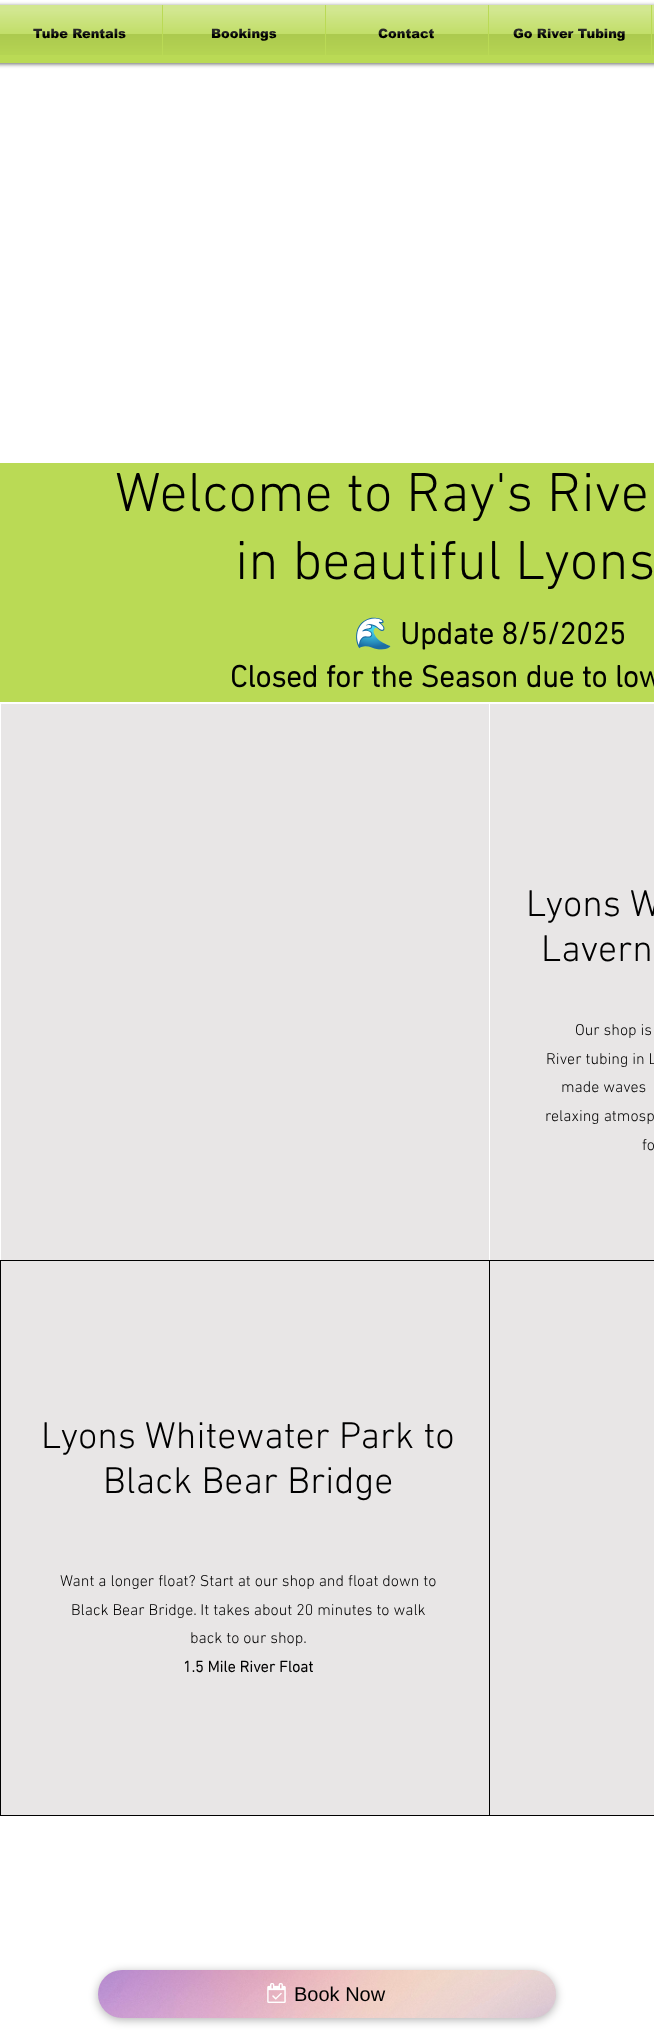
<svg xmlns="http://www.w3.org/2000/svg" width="654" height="2038">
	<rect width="100%" height="100%" fill="#FFFFFF" />
	<rect x="-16" y="6" width="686" height="58" rx="10" fill="#000000" fill-opacity="0.6" filter="blur(2px)" />
	<rect x="0" y="5" width="654" height="58" fill="#BADA55" />
	<text x="33" y="38" font-family="arial" font-size="13" font-weight="900" fill="#000000">Tube Rentals</text>
	<image x="0" y="5" width="162" height="50" href="assets/img1.png" />
	<text x="211" y="38" font-family="arial" font-size="13" font-weight="900" fill="#000000">Bookings</text>
	<image x="163" y="5" width="162" height="50" href="assets/img2.png" />
	<text x="378" y="38" font-family="arial" font-size="13" font-weight="900" fill="#000000">Contact</text>
	<image x="326" y="5" width="162" height="50" href="assets/img3.png" />
	<text x="513" y="38" font-family="arial" font-size="13" font-weight="900" fill="#000000">Go River Tubing</text>
	<image x="489" y="5" width="162" height="50" href="assets/img4.png" />
	<image x="652" y="5" width="2" height="50" href="assets/img5.png" />
	<rect x="0" y="463" width="654" height="239" fill="#BADA55" />
	<g font-family="'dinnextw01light'" font-size="56" font-weight="300" fill="#000000">
		<text x="115" y="511">Welcome to Ray's Rive</text>
		<text x="235" y="579">in beautiful Lyons</text>
	</g>
	<text x="354" y="644" font-family="Noto Color Emoji" font-size="31" font-weight="700" fill="#000000">🌊</text>
	<g font-family="'dinnextw01light'" font-size="31" font-weight="700" fill="#000000">
		<text x="400" y="644">Update 8/5/2025</text>
		<text x="230" y="687">Closed for the Season due to low</text>
	</g>
	<rect x="1" y="704" width="488" height="556" fill="#E8E6E6" />
	<rect x="490" y="704" width="164" height="556" fill="#E8E6E6" />
	<g font-family="'dinnextw01light'" font-size="38" font-weight="300" fill="#000000">
		<text x="526" y="916">Lyons W</text>
		<text x="541" y="961">Lavern</text>
	</g>
	<g font-family="'dinnextw01light'" font-size="16" font-weight="300" fill="#000000">
		<text x="575" y="1035">Our shop is</text>
		<text x="546" y="1064">River tubing in L</text>
		<text x="561" y="1092">made waves</text>
		<text x="545" y="1121">relaxing atmosp</text>
		<text x="642" y="1150">fo</text>
	</g>
	<rect x="0" y="1260" width="654" height="556" fill="#000000" />
	<rect x="1" y="1261" width="488" height="554" fill="#E8E6E6" />
	<g font-family="'dinnextw01light'" font-size="38" font-weight="300" fill="#000000">
		<text x="41" y="1448">Lyons Whitewater Park to</text>
		<text x="103" y="1493">Black Bear Bridge</text>
	</g>
	<g font-family="'dinnextw01light'" font-size="16" font-weight="300" fill="#000000">
		<text x="60" y="1586">Want a longer float? Start at our shop and float down to</text>
		<text x="71" y="1615">Black Bear Bridge. It takes about 20 minutes to walk</text>
		<text x="190" y="1643">back to our shop.</text>
	</g>
	<text x="183" y="1672" font-family="'dinnextw01light'" font-size="16" font-weight="700" fill="#000000">1.5 Mile River Float</text>
	<rect x="490" y="1261" width="164" height="554" fill="#E8E6E6" />
	<rect x="98" y="1972" width="458" height="48" rx="24" fill="#000000" fill-opacity="0.3" filter="blur(5px)" />
	<image x="98" y="1970" width="458" height="48" href="assets/img6.png" />
	<image x="267" y="1983" width="19" height="20" href="assets/img7.png" />
	<text x="294" y="2001" font-family="Liberation Sans" font-size="20" fill="#000000">Book Now</text>
</svg>
